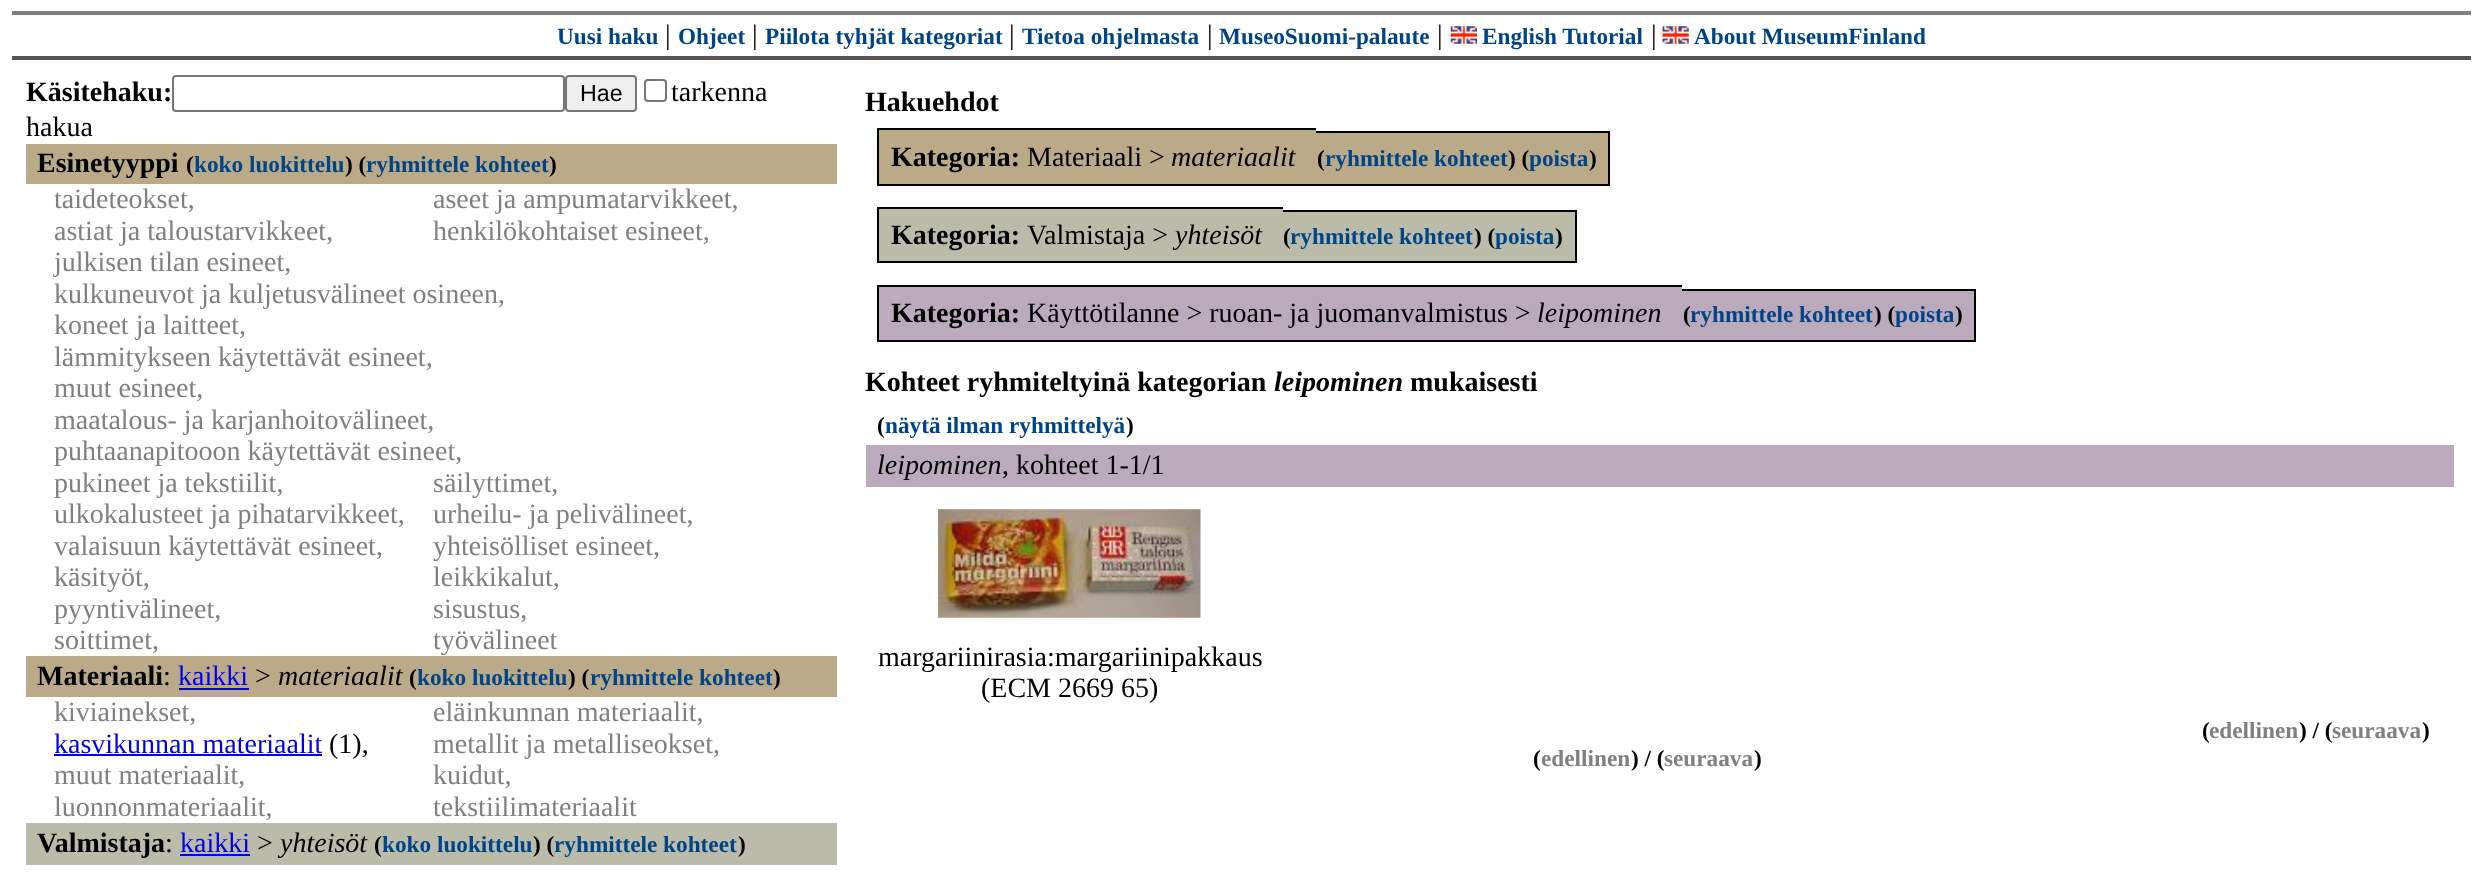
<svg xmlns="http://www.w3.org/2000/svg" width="2482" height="878">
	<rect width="100%" height="100%" fill="#FFFFFF" />
	<rect x="12" y="11" width="2459" height="4" fill="#808080" />
	<rect x="12" y="56" width="2459" height="4" fill="#555555" />
	<text x="557" y="44" font-family="Liberation Serif" font-size="23.25" font-weight="700" fill="#004488">Uusi haku</text>
	<text x="665" y="44" font-family="Liberation Serif" font-size="28" fill="#000000">|</text>
	<text x="678" y="44" font-family="Liberation Serif" font-size="23.25" font-weight="700" fill="#004488">Ohjeet</text>
	<text x="752" y="44" font-family="Liberation Serif" font-size="28" fill="#000000">|</text>
	<text x="765" y="44" font-family="Liberation Serif" font-size="23.25" font-weight="700" fill="#004488">Piilota tyhjät kategoriat</text>
	<text x="1009" y="44" font-family="Liberation Serif" font-size="28" fill="#000000">|</text>
	<text x="1022" y="44" font-family="Liberation Serif" font-size="23.25" font-weight="700" fill="#004488">Tietoa ohjelmasta</text>
	<text x="1207" y="44" font-family="Liberation Serif" font-size="28" fill="#000000">|</text>
	<text x="1219" y="44" font-family="Liberation Serif" font-size="23.25" font-weight="700" fill="#004488">MuseoSuomi-palaute</text>
	<text x="1437" y="44" font-family="Liberation Serif" font-size="28" fill="#000000">|</text>
	<image x="1450" y="26" width="27" height="18" href="assets/img1.png" />
	<text x="1482" y="44" font-family="Liberation Serif" font-size="23.25" font-weight="700" fill="#004488">English Tutorial</text>
	<text x="1651" y="44" font-family="Liberation Serif" font-size="28" fill="#000000">|</text>
	<image x="1662" y="26" width="27" height="18" href="assets/img2.png" />
	<text x="1694" y="44" font-family="Liberation Serif" font-size="23.25" font-weight="700" fill="#004488">About MuseumFinland</text>
	<text x="26" y="101" font-family="Liberation Serif" font-size="28" font-weight="700" fill="#000000">Käsitehaku:</text>
	<rect x="173" y="76" width="391" height="35" rx="3" fill="none" stroke="#767676" stroke-width="2" />
	<rect x="566" y="76" width="70" height="35" rx="3" fill="#EFEFEF" stroke="#767676" stroke-width="2" />
	<text x="580" y="101" font-family="Liberation Sans" font-size="23.25" fill="#000000">Hae</text>
	<rect x="645" y="80" width="21" height="21" rx="3" fill="none" stroke="#767676" stroke-width="2" />
	<g font-family="Liberation Serif" font-size="28" fill="#000000">
		<text x="671" y="101">tarkenna</text>
		<text x="26" y="136">hakua</text>
	</g>
	<rect x="26" y="144" width="811" height="40" fill="#BBAA88" />
	<text x="37" y="172" font-family="Liberation Serif" font-size="28" font-weight="700" fill="#000000">Esinetyyppi</text>
	<text x="186" y="172" font-family="Liberation Serif" font-size="23.25" font-weight="700" fill="#000000">(</text>
	<text x="194" y="172" font-family="Liberation Serif" font-size="23.25" font-weight="700" fill="#004488">koko luokittelu</text>
	<text x="345" y="172" font-family="Liberation Serif" font-size="23.25" font-weight="700" fill="#000000">) (</text>
	<text x="366" y="172" font-family="Liberation Serif" font-size="23.25" font-weight="700" fill="#004488">ryhmittele kohteet</text>
	<text x="549" y="172" font-family="Liberation Serif" font-size="23.25" font-weight="700" fill="#000000">)</text>
	<g font-family="Liberation Serif" font-size="28" fill="#808080">
		<text x="54" y="208">taideteokset,</text>
		<text x="433" y="208">aseet ja ampumatarvikkeet,</text>
		<text x="54" y="240">astiat ja taloustarvikkeet,</text>
		<text x="433" y="240">henkilökohtaiset esineet,</text>
		<text x="54" y="271">julkisen tilan esineet,</text>
		<text x="54" y="303">kulkuneuvot ja kuljetusvälineet osineen,</text>
		<text x="54" y="334">koneet ja laitteet,</text>
		<text x="54" y="366">lämmitykseen käytettävät esineet,</text>
		<text x="54" y="397">muut esineet,</text>
		<text x="54" y="429">maatalous- ja karjanhoitovälineet,</text>
		<text x="54" y="460">puhtaanapitooon käytettävät esineet,</text>
		<text x="54" y="492">pukineet ja tekstiilit,</text>
		<text x="433" y="492">säilyttimet,</text>
		<text x="54" y="523">ulkokalusteet ja pihatarvikkeet,</text>
		<text x="433" y="523">urheilu- ja pelivälineet,</text>
		<text x="54" y="555">valaisuun käytettävät esineet,</text>
		<text x="433" y="555">yhteisölliset esineet,</text>
		<text x="54" y="586">käsityöt,</text>
		<text x="433" y="586">leikkikalut,</text>
		<text x="54" y="618">pyyntivälineet,</text>
		<text x="433" y="618">sisustus,</text>
		<text x="54" y="649">soittimet,</text>
		<text x="433" y="649">työvälineet</text>
	</g>
	<rect x="26" y="656" width="811" height="41" fill="#BBAA88" />
	<text x="37" y="685" font-family="Liberation Serif" font-size="28" font-weight="700" fill="#000000">Materiaali</text>
	<text x="163" y="685" font-family="Liberation Serif" font-size="28" fill="#000000">:</text>
	<text x="178" y="685" font-family="Liberation Serif" font-size="28" fill="#0000EE">kaikki</text>
	<rect x="179" y="688" width="70" height="2" fill="#0000EE" />
	<text x="255" y="685" font-family="Liberation Serif" font-size="28" fill="#000000">&gt;</text>
	<text x="278" y="685" font-family="Liberation Serif" font-size="28" font-style="italic" fill="#000000">materiaalit</text>
	<text x="409" y="685" font-family="Liberation Serif" font-size="23.25" font-weight="700" fill="#000000">(</text>
	<text x="417" y="685" font-family="Liberation Serif" font-size="23.25" font-weight="700" fill="#004488">koko luokittelu</text>
	<text x="568" y="685" font-family="Liberation Serif" font-size="23.25" font-weight="700" fill="#000000">) (</text>
	<text x="590" y="685" font-family="Liberation Serif" font-size="23.25" font-weight="700" fill="#004488">ryhmittele kohteet</text>
	<text x="773" y="685" font-family="Liberation Serif" font-size="23.25" font-weight="700" fill="#000000">)</text>
	<g font-family="Liberation Serif" font-size="28" fill="#808080">
		<text x="54" y="721">kiviainekset,</text>
		<text x="433" y="721">eläinkunnan materiaalit,</text>
	</g>
	<text x="54" y="753" font-family="Liberation Serif" font-size="28" fill="#0000EE">kasvikunnan materiaalit</text>
	<rect x="54" y="754" width="268" height="2" fill="#0000EE" />
	<text x="329" y="753" font-family="Liberation Serif" font-size="28" fill="#000000">(1),</text>
	<g font-family="Liberation Serif" font-size="28" fill="#808080">
		<text x="433" y="753">metallit ja metalliseokset,</text>
		<text x="54" y="784">muut materiaalit,</text>
		<text x="433" y="784">kuidut,</text>
		<text x="54" y="816">luonnonmateriaalit,</text>
		<text x="433" y="816">tekstiilimateriaalit</text>
	</g>
	<rect x="26" y="823" width="811" height="42" fill="#BBBBAA" />
	<text x="37" y="852" font-family="Liberation Serif" font-size="28" font-weight="700" fill="#000000">Valmistaja</text>
	<text x="165" y="852" font-family="Liberation Serif" font-size="28" fill="#000000">:</text>
	<text x="180" y="852" font-family="Liberation Serif" font-size="28" fill="#0000EE">kaikki</text>
	<rect x="180" y="854" width="70" height="2" fill="#0000EE" />
	<text x="257" y="852" font-family="Liberation Serif" font-size="28" fill="#000000">&gt;</text>
	<text x="280" y="852" font-family="Liberation Serif" font-size="28" font-style="italic" fill="#000000">yhteisöt</text>
	<text x="374" y="852" font-family="Liberation Serif" font-size="23.25" font-weight="700" fill="#000000">(</text>
	<text x="382" y="852" font-family="Liberation Serif" font-size="23.25" font-weight="700" fill="#004488">koko luokittelu</text>
	<text x="533" y="852" font-family="Liberation Serif" font-size="23.25" font-weight="700" fill="#000000">) (</text>
	<text x="554" y="852" font-family="Liberation Serif" font-size="23.25" font-weight="700" fill="#004488">ryhmittele kohteet</text>
	<text x="738" y="852" font-family="Liberation Serif" font-size="23.25" font-weight="700" fill="#000000">)</text>
	<text x="865" y="111" font-family="Liberation Serif" font-size="28" font-weight="700" fill="#000000">Hakuehdot</text>
	<rect x="879" y="130" width="437" height="54" fill="#BBAA88" />
	<text x="891" y="166" font-family="Liberation Serif" font-size="28" font-weight="700" fill="#000000">Kategoria:</text>
	<rect x="877" y="128" width="439" height="2" fill="#000000" />
	<rect x="877" y="184" width="712" height="2" fill="#000000" />
	<rect x="877" y="128" width="2" height="58" fill="#000000" />
	<text x="1027" y="166" font-family="Liberation Serif" font-size="28" fill="#000000">Materiaali &gt;</text>
	<text x="1171" y="166" font-family="Liberation Serif" font-size="28" font-style="italic" fill="#000000">materiaalit</text>
	<rect x="1316" y="133" width="292" height="51" fill="#BBAA88" />
	<text x="1317" y="166" font-family="Liberation Serif" font-size="23.25" font-weight="700" fill="#000000">(</text>
	<rect x="1316" y="131" width="294" height="2" fill="#000000" />
	<text x="1325" y="166" font-family="Liberation Serif" font-size="23.25" font-weight="700" fill="#004488">ryhmittele kohteet</text>
	<text x="1508" y="166" font-family="Liberation Serif" font-size="23.25" font-weight="700" fill="#000000">) (</text>
	<text x="1529" y="166" font-family="Liberation Serif" font-size="23.25" font-weight="700" fill="#004488">poista</text>
	<rect x="1608" y="131" width="2" height="55" fill="#000000" />
	<rect x="1589" y="184" width="21" height="2" fill="#000000" />
	<text x="1589" y="166" font-family="Liberation Serif" font-size="23.25" font-weight="700" fill="#000000">)</text>
	<rect x="879" y="209" width="404" height="52" fill="#BBBBAA" />
	<text x="891" y="244" font-family="Liberation Serif" font-size="28" font-weight="700" fill="#000000">Kategoria:</text>
	<rect x="877" y="207" width="406" height="2" fill="#000000" />
	<rect x="877" y="261" width="406" height="2" fill="#000000" />
	<rect x="877" y="207" width="2" height="56" fill="#000000" />
	<text x="1027" y="244" font-family="Liberation Serif" font-size="28" fill="#000000">Valmistaja &gt;</text>
	<text x="1175" y="244" font-family="Liberation Serif" font-size="28" font-style="italic" fill="#000000">yhteisöt</text>
	<rect x="1283" y="210" width="7" height="53" fill="#BBBBAA" />
	<text x="1283" y="244" font-family="Liberation Serif" font-size="23.25" font-weight="700" fill="#000000">(</text>
	<rect x="1283" y="210" width="205" height="2" fill="#000000" />
	<rect x="1290" y="212" width="198" height="49" fill="#BBBBAA" />
	<text x="1290" y="244" font-family="Liberation Serif" font-size="23.25" font-weight="700" fill="#004488">ryhmittele kohteet</text>
	<rect x="1283" y="261" width="205" height="2" fill="#000000" />
	<rect x="1488" y="210" width="7" height="53" fill="#BBBBAA" />
	<text x="1474" y="244" font-family="Liberation Serif" font-size="23.25" font-weight="700" fill="#000000">) (</text>
	<rect x="1488" y="210" width="89" height="2" fill="#000000" />
	<rect x="1488" y="261" width="66" height="2" fill="#000000" />
	<rect x="1495" y="212" width="80" height="49" fill="#BBBBAA" />
	<text x="1495" y="244" font-family="Liberation Serif" font-size="23.25" font-weight="700" fill="#004488">poista</text>
	<rect x="1575" y="210" width="2" height="53" fill="#000000" />
	<rect x="1554" y="261" width="23" height="2" fill="#000000" />
	<text x="1555" y="244" font-family="Liberation Serif" font-size="23.25" font-weight="700" fill="#000000">)</text>
	<rect x="879" y="287" width="803" height="53" fill="#BBAABB" />
	<text x="891" y="322" font-family="Liberation Serif" font-size="28" font-weight="700" fill="#000000">Kategoria:</text>
	<rect x="877" y="285" width="805" height="2" fill="#000000" />
	<rect x="877" y="340" width="1010" height="2" fill="#000000" />
	<rect x="877" y="285" width="2" height="56" fill="#000000" />
	<text x="1027" y="322" font-family="Liberation Serif" font-size="28" fill="#000000">Käyttötilanne &gt; ruoan- ja juomanvalmistus &gt;</text>
	<text x="1537" y="322" font-family="Liberation Serif" font-size="28" font-style="italic" fill="#000000">leipominen</text>
	<rect x="1682" y="291" width="205" height="49" fill="#BBAABB" />
	<text x="1683" y="322" font-family="Liberation Serif" font-size="23.25" font-weight="700" fill="#000000">(</text>
	<rect x="1682" y="289" width="205" height="2" fill="#000000" />
	<text x="1690" y="322" font-family="Liberation Serif" font-size="23.25" font-weight="700" fill="#004488">ryhmittele kohteet</text>
	<rect x="1887" y="289" width="8" height="52" fill="#BBAABB" />
	<text x="1874" y="322" font-family="Liberation Serif" font-size="23.25" font-weight="700" fill="#000000">) (</text>
	<rect x="1887" y="289" width="89" height="2" fill="#000000" />
	<rect x="1887" y="340" width="68" height="2" fill="#000000" />
	<rect x="1895" y="291" width="79" height="49" fill="#BBAABB" />
	<text x="1895" y="322" font-family="Liberation Serif" font-size="23.25" font-weight="700" fill="#004488">poista</text>
	<rect x="1974" y="289" width="2" height="52" fill="#000000" />
	<rect x="1955" y="340" width="21" height="2" fill="#000000" />
	<text x="1955" y="322" font-family="Liberation Serif" font-size="23.25" font-weight="700" fill="#000000">)</text>
	<text x="865" y="391" font-family="Liberation Serif" font-size="28" font-weight="700" fill="#000000">Kohteet ryhmiteltyinä kategorian</text>
	<text x="1274" y="391" font-family="Liberation Serif" font-size="28" font-weight="700" font-style="italic" fill="#000000">leipominen</text>
	<text x="1410" y="391" font-family="Liberation Serif" font-size="28" font-weight="700" fill="#000000">mukaisesti</text>
	<text x="877" y="433" font-family="Liberation Serif" font-size="23.25" font-weight="700" fill="#000000">(</text>
	<text x="885" y="433" font-family="Liberation Serif" font-size="23.25" font-weight="700" fill="#004488">näytä ilman ryhmittelyä</text>
	<text x="1126" y="433" font-family="Liberation Serif" font-size="23.25" font-weight="700" fill="#000000">)</text>
	<rect x="866" y="445" width="1588" height="42" fill="#BBAABB" />
	<text x="877" y="474" font-family="Liberation Serif" font-size="28" font-style="italic" fill="#000000">leipominen</text>
	<text x="1002" y="474" font-family="Liberation Serif" font-size="28" fill="#000000">, kohteet 1-1/1</text>
	<image x="938" y="509" width="263" height="109" href="assets/img3.png" />
	<g font-family="Liberation Serif" font-size="28" fill="#000000">
		<text x="878" y="666">margariinirasia:margariinipakkaus</text>
		<text x="981" y="697">(ECM 2669 65)</text>
	</g>
	<text x="2202" y="738" font-family="Liberation Serif" font-size="23.25" font-weight="700" fill="#000000">(</text>
	<text x="2209" y="738" font-family="Liberation Serif" font-size="23.25" font-weight="700" fill="#808080">edellinen</text>
	<text x="2299" y="738" font-family="Liberation Serif" font-size="23.25" font-weight="700" fill="#000000">) / (</text>
	<text x="2332" y="738" font-family="Liberation Serif" font-size="23.25" font-weight="700" fill="#808080">seuraava</text>
	<g font-family="Liberation Serif" font-size="23.25" font-weight="700" fill="#000000">
		<text x="2422" y="738">)</text>
		<text x="1533" y="766">(</text>
	</g>
	<text x="1541" y="766" font-family="Liberation Serif" font-size="23.25" font-weight="700" fill="#808080">edellinen</text>
	<text x="1631" y="766" font-family="Liberation Serif" font-size="23.25" font-weight="700" fill="#000000">) / (</text>
	<text x="1664" y="766" font-family="Liberation Serif" font-size="23.25" font-weight="700" fill="#808080">seuraava</text>
	<text x="1754" y="766" font-family="Liberation Serif" font-size="23.25" font-weight="700" fill="#000000">)</text>
</svg>
